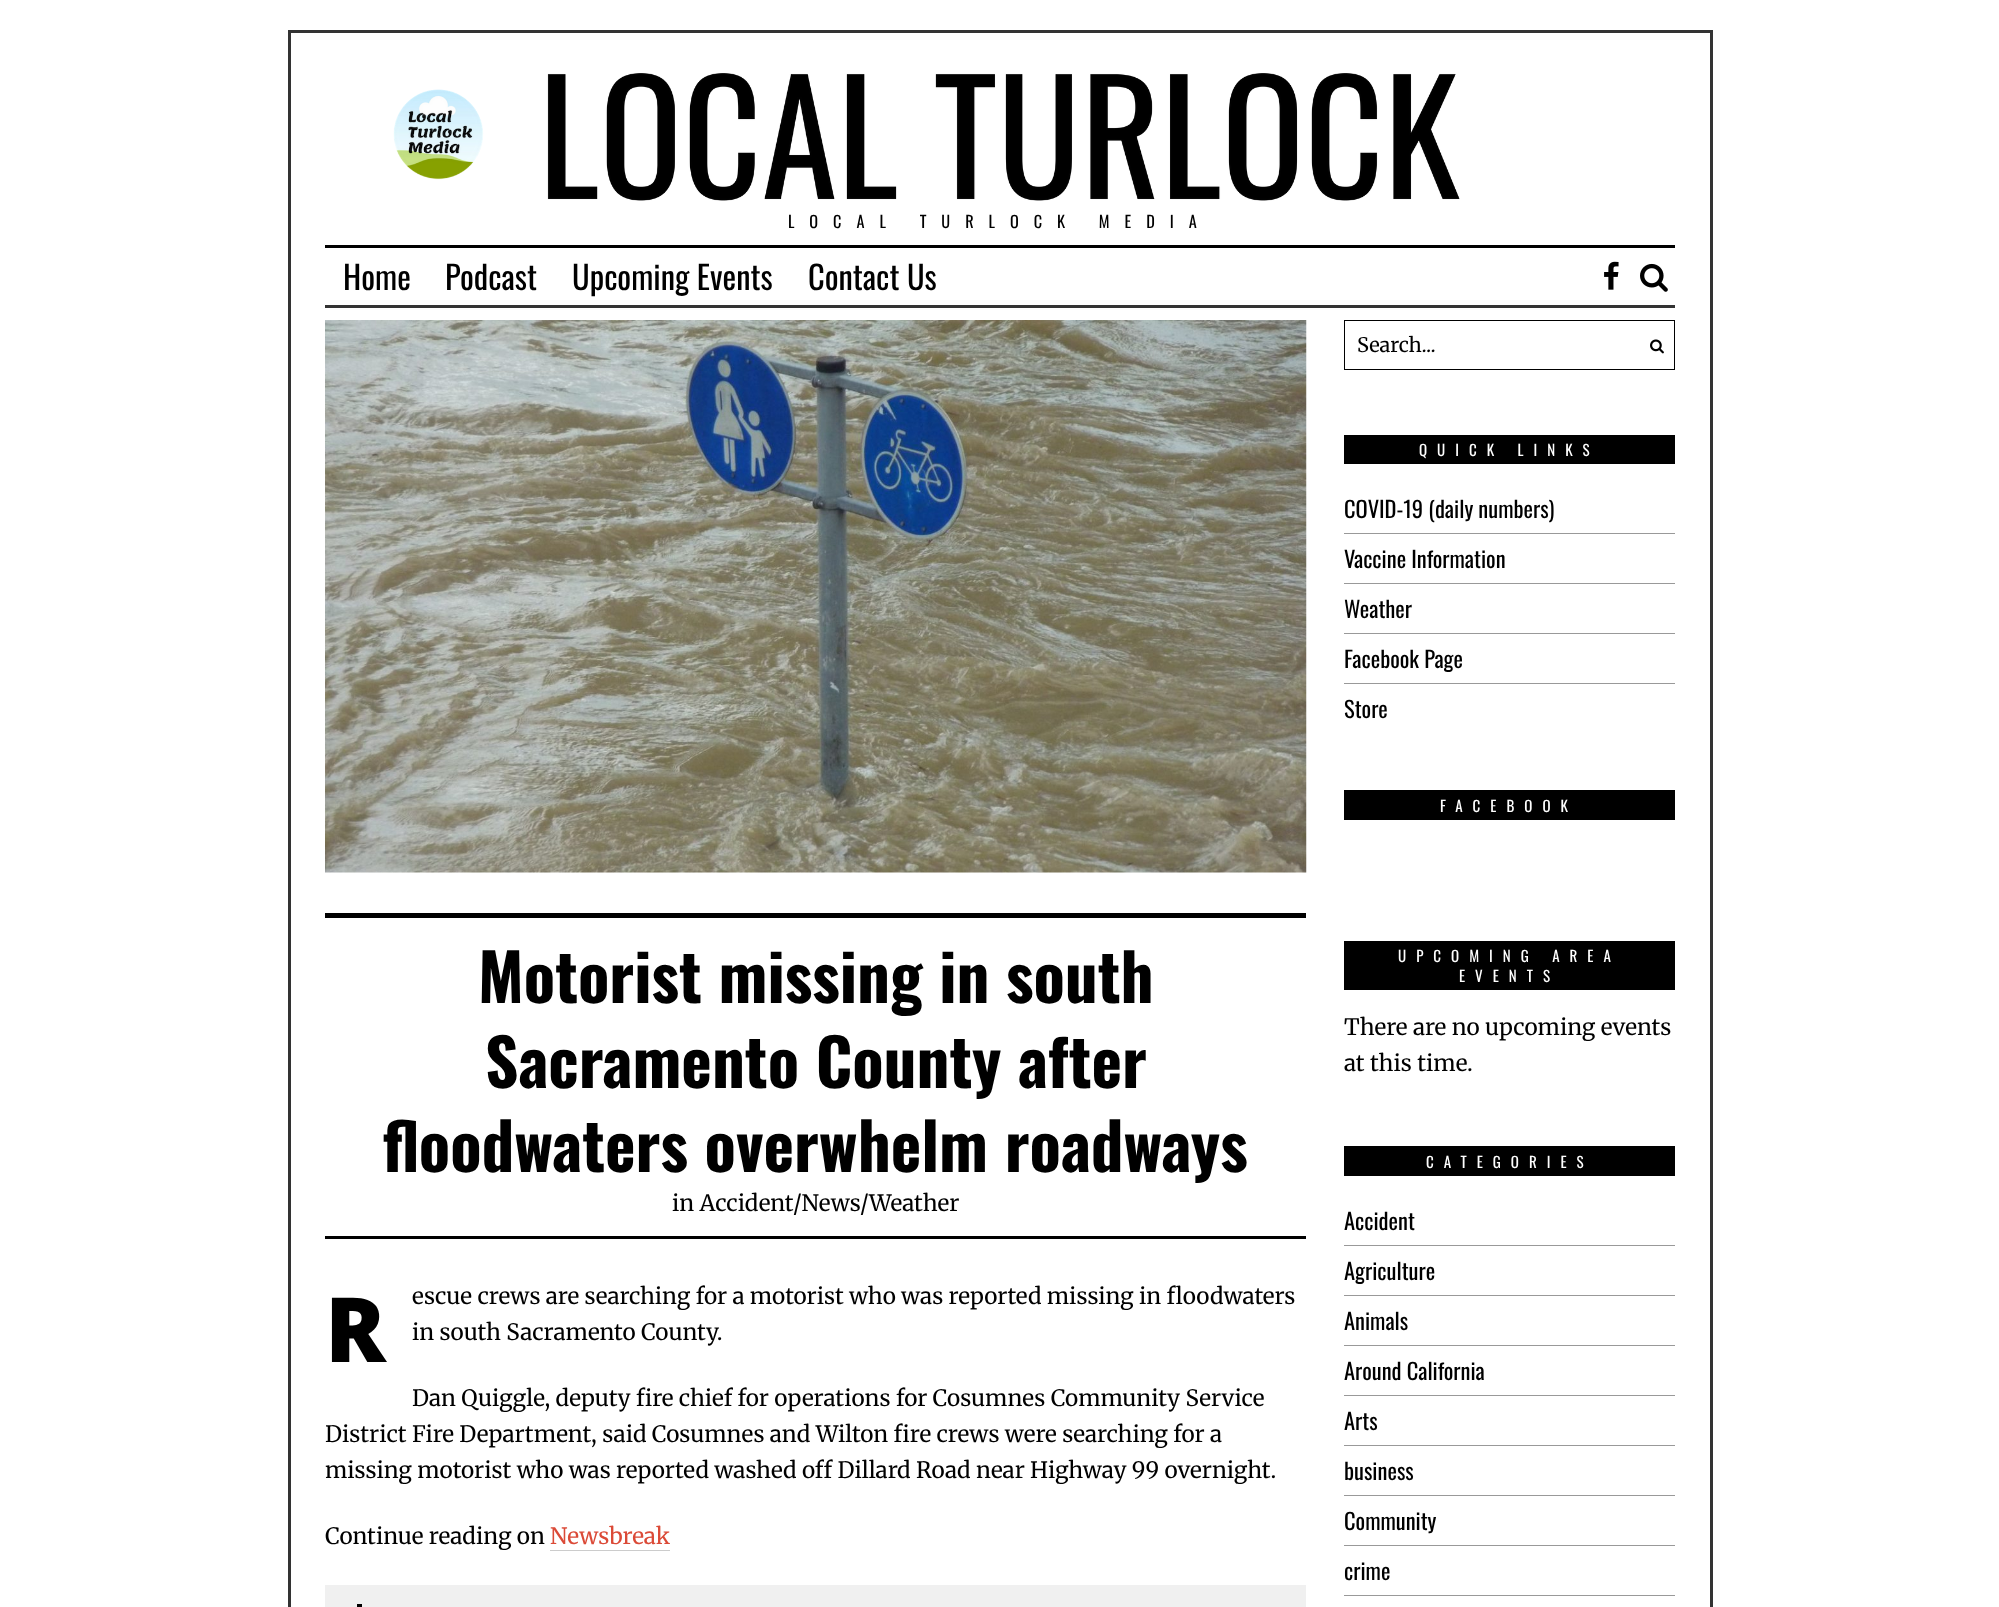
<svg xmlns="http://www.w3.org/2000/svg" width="1999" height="1607">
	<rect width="100%" height="100%" fill="#FFFFFF" />
	<rect x="288" y="30" width="1425" height="3" fill="#333333" />
	<rect x="288" y="33" width="3" height="1574" fill="#333333" />
	<image x="393" y="73" width="1067" height="128" href="assets/img1.png" />
	<text x="788" y="228" font-family="Oswald" font-size="16.25" letter-spacing="15" fill="#000000">LOCAL TURLOCK MEDIA</text>
	<rect x="325" y="245" width="1350" height="3" fill="#000000" />
	<rect x="325" y="305" width="1350" height="3" fill="#333333" />
	<g font-family="Oswald" font-size="32.5" fill="#000000">
		<text x="343" y="290">Home</text>
		<text x="445" y="290">Podcast</text>
		<text x="572" y="290">Upcoming Events</text>
		<text x="808" y="290">Contact Us</text>
	</g>
	<image x="1604" y="261" width="15" height="29" href="assets/img2.png" />
	<image x="1640" y="263" width="28" height="29" href="assets/img3.png" />
	<rect x="1710" y="33" width="3" height="1574" fill="#333333" />
	<image x="325" y="320" width="982" height="553" href="assets/img4.png" />
	<rect x="325" y="913" width="981" height="5" fill="#000000" />
	<rect x="325" y="1236" width="981" height="3" fill="#000000" />
	<g font-family="Oswald" font-size="65" font-weight="700" fill="#000000">
		<text x="478" y="1003">Motorist missing in south</text>
		<text x="485" y="1088">Sacramento County after</text>
		<text x="383" y="1172">floodwaters overwhelm roadways</text>
	</g>
	<g font-family="Merriweather" font-size="22.5" fill="#000000">
		<text x="672" y="1211">in Accident</text>
		<text x="793" y="1211">/News</text>
		<text x="860" y="1211">/</text>
		<text x="869" y="1211">Weather</text>
	</g>
	<text x="325" y="1362" font-family="Noto Sans" font-size="90" font-weight="900" fill="#000000">R</text>
	<g font-family="Merriweather" font-size="22.5" fill="#000000">
		<text x="412" y="1304">escue crews are searching for a motorist who was reported missing in floodwaters</text>
		<text x="412" y="1340">in south Sacramento County.</text>
		<text x="412" y="1406">Dan Quiggle, deputy fire chief for operations for Cosumnes Community Service</text>
		<text x="325" y="1442">District Fire Department, said Cosumnes and Wilton fire crews were searching for a</text>
		<text x="325" y="1478">missing motorist who was reported washed off Dillard Road near Highway 99 overnight.</text>
		<text x="325" y="1544">Continue reading on</text>
	</g>
	<text x="550" y="1544" font-family="Merriweather" font-size="22.5" fill="#DB4A37">Newsbreak</text>
	<rect x="550" y="1550" width="120" height="1" fill="#CCCCCC" />
	<rect x="325" y="1585" width="981" height="22" fill="#F0F0F0" />
	<rect x="357" y="1604" width="5" height="3" fill="#000000" />
	<rect x="1344.5" y="320.5" width="330" height="49" fill="none" stroke="#000000" />
	<text x="1357" y="352" font-family="Merriweather" font-size="20" fill="#000000">Search...</text>
	<image x="1650" y="339" width="14" height="15" href="assets/img5.png" />
	<rect x="1344" y="435" width="331" height="29" fill="#000000" />
	<text x="1419" y="456" font-family="Oswald" font-size="15" letter-spacing="10" fill="#FFFFFF">QUICK LINKS</text>
	<rect x="1344" y="533" width="331" height="1" fill="#999999" />
	<text x="1344" y="518" font-family="Oswald" font-size="22.5" fill="#000000">COVID-19 (daily numbers)</text>
	<rect x="1344" y="583" width="331" height="1" fill="#999999" />
	<text x="1344" y="568" font-family="Oswald" font-size="22.5" fill="#000000">Vaccine Information</text>
	<rect x="1344" y="633" width="331" height="1" fill="#999999" />
	<text x="1344" y="618" font-family="Oswald" font-size="22.5" fill="#000000">Weather</text>
	<rect x="1344" y="683" width="331" height="1" fill="#999999" />
	<g font-family="Oswald" font-size="22.5" fill="#000000">
		<text x="1344" y="668">Facebook Page</text>
		<text x="1344" y="718">Store</text>
	</g>
	<rect x="1344" y="790" width="331" height="30" fill="#000000" />
	<text x="1440" y="812" font-family="Oswald" font-size="15" letter-spacing="10" fill="#FFFFFF">FACEBOOK</text>
	<rect x="1344" y="941" width="331" height="49" fill="#000000" />
	<g font-family="Oswald" font-size="15" letter-spacing="10" fill="#FFFFFF">
		<text x="1398" y="962">UPCOMING AREA</text>
		<text x="1459" y="982">EVENTS</text>
	</g>
	<g font-family="Merriweather" font-size="22.5" fill="#000000">
		<text x="1344" y="1035">There are no upcoming events</text>
		<text x="1344" y="1071">at this time.</text>
	</g>
	<rect x="1344" y="1146" width="331" height="30" fill="#000000" />
	<text x="1426" y="1168" font-family="Oswald" font-size="15" letter-spacing="10" fill="#FFFFFF">CATEGORIES</text>
	<rect x="1344" y="1245" width="331" height="1" fill="#999999" />
	<text x="1344" y="1230" font-family="Oswald" font-size="22.5" fill="#000000">Accident</text>
	<rect x="1344" y="1295" width="331" height="1" fill="#999999" />
	<text x="1344" y="1280" font-family="Oswald" font-size="22.5" fill="#000000">Agriculture</text>
	<rect x="1344" y="1345" width="331" height="1" fill="#999999" />
	<text x="1344" y="1330" font-family="Oswald" font-size="22.5" fill="#000000">Animals</text>
	<rect x="1344" y="1395" width="331" height="1" fill="#999999" />
	<text x="1344" y="1380" font-family="Oswald" font-size="22.5" fill="#000000">Around California</text>
	<rect x="1344" y="1445" width="331" height="1" fill="#999999" />
	<text x="1344" y="1430" font-family="Oswald" font-size="22.5" fill="#000000">Arts</text>
	<rect x="1344" y="1495" width="331" height="1" fill="#999999" />
	<text x="1344" y="1480" font-family="Oswald" font-size="22.5" fill="#000000">business</text>
	<rect x="1344" y="1545" width="331" height="1" fill="#999999" />
	<text x="1344" y="1530" font-family="Oswald" font-size="22.5" fill="#000000">Community</text>
	<rect x="1344" y="1595" width="331" height="1" fill="#999999" />
	<text x="1344" y="1580" font-family="Oswald" font-size="22.5" fill="#000000">crime</text>
</svg>
